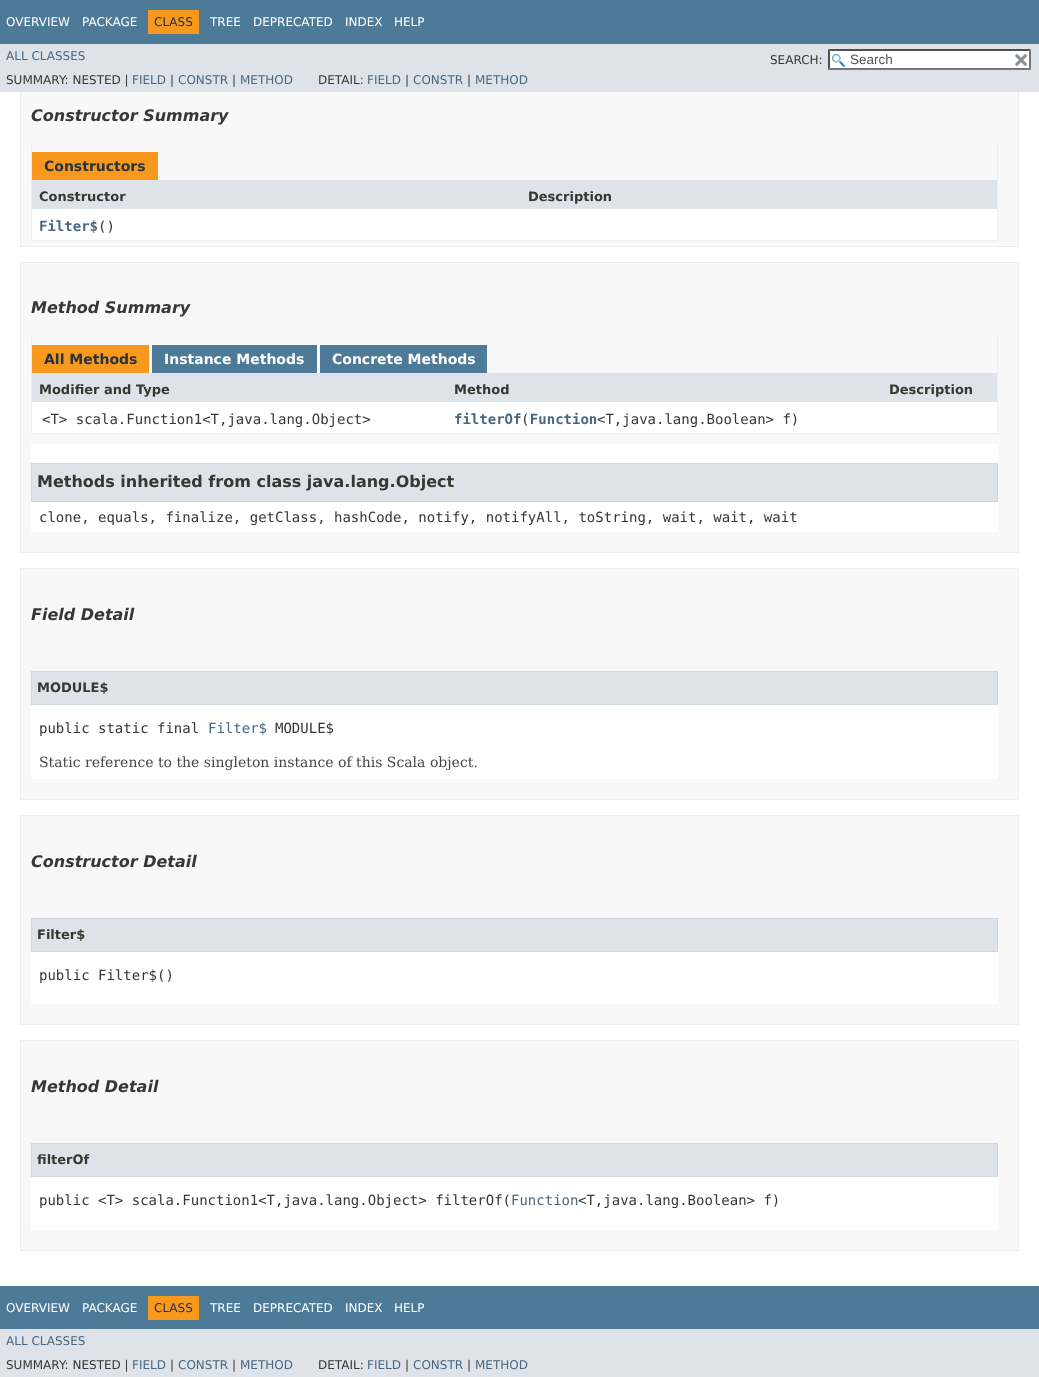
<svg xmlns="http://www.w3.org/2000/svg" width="1039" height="1377">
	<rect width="100%" height="100%" fill="#FFFFFF" />
	<rect x="0" y="0" width="1039" height="44" fill="#4D7A97" />
	<g font-family="DejaVu Sans" font-size="12" fill="#FFFFFF">
		<text x="6" y="26">OVERVIEW</text>
		<text x="82" y="26">PACKAGE</text>
	</g>
	<rect x="148" y="10" width="51" height="24" fill="#F8981D" />
	<text x="154" y="26" font-family="DejaVu Sans" font-size="12" fill="#253441">CLASS</text>
	<g font-family="DejaVu Sans" font-size="12" fill="#FFFFFF">
		<text x="210" y="26">TREE</text>
		<text x="253" y="26">DEPRECATED</text>
		<text x="345" y="26">INDEX</text>
		<text x="394" y="26">HELP</text>
	</g>
	<rect x="21" y="92" width="997" height="154" fill="#F8F8F8" />
	<rect x="20.5" y="69.5" width="998" height="177" fill="none" stroke="#EDEDED" />
	<rect x="0" y="44" width="1039" height="48" fill="#DEE3E9" />
	<text x="6" y="60" font-family="DejaVu Sans" font-size="12" fill="#4A6782">ALL CLASSES</text>
	<text x="770" y="64" font-family="DejaVu Sans" font-size="12" fill="#353833">SEARCH:</text>
	<rect x="828" y="49" width="203" height="21" fill="#FFFFFF" />
	<image x="832" y="54" width="13" height="13" href="assets/img1.png" />
	<path d="M828 49H1031L1029 51H830Z" fill="#4F4F4F" />
	<path d="M1031 49V70L1029 68V51Z" fill="#767676" />
	<path d="M1031 70H828L830 68H1029Z" fill="#767676" />
	<path d="M828 70V49L830 51V68Z" fill="#4F4F4F" />
	<text x="850" y="64" font-family="Liberation Sans" font-size="13.5" fill="#545454">Search</text>
	<image x="1014" y="54" width="14" height="12" href="assets/img2.png" />
	<text x="6" y="84" font-family="DejaVu Sans" font-size="12" fill="#353833">SUMMARY: NESTED |</text>
	<text x="132" y="84" font-family="DejaVu Sans" font-size="12" fill="#4A6782">FIELD</text>
	<text x="170" y="84" font-family="DejaVu Sans" font-size="12" fill="#353833">|</text>
	<text x="178" y="84" font-family="DejaVu Sans" font-size="12" fill="#4A6782">CONSTR</text>
	<text x="232" y="84" font-family="DejaVu Sans" font-size="12" fill="#353833">|</text>
	<text x="240" y="84" font-family="DejaVu Sans" font-size="12" fill="#4A6782">METHOD</text>
	<text x="318" y="84" font-family="DejaVu Sans" font-size="12" fill="#353833">DETAIL:</text>
	<text x="367" y="84" font-family="DejaVu Sans" font-size="12" fill="#4A6782">FIELD</text>
	<text x="405" y="84" font-family="DejaVu Sans" font-size="12" fill="#353833">|</text>
	<text x="413" y="84" font-family="DejaVu Sans" font-size="12" fill="#4A6782">CONSTR</text>
	<text x="467" y="84" font-family="DejaVu Sans" font-size="12" fill="#353833">|</text>
	<text x="475" y="84" font-family="DejaVu Sans" font-size="12" fill="#4A6782">METHOD</text>
	<text x="31" y="121" font-family="DejaVu Sans" font-size="16" font-weight="700" font-style="italic" fill="#353833">Constructor Summary</text>
	<rect x="997" y="142" width="1" height="99" fill="#EEEEEE" />
	<rect x="31" y="240" width="967" height="1" fill="#EEEEEE" />
	<rect x="31" y="142" width="1" height="99" fill="#EEEEEE" />
	<rect x="32" y="152" width="126" height="28" fill="#F8981D" />
	<text x="44" y="171" font-family="DejaVu Sans" font-size="14" font-weight="700" fill="#253441">Constructors</text>
	<rect x="32" y="180" width="965" height="29" fill="#DEE3E9" />
	<g font-family="DejaVu Sans" font-size="13" font-weight="700" fill="#353833">
		<text x="39" y="201">Constructor</text>
		<text x="528" y="201">Description</text>
	</g>
	<rect x="32" y="209" width="965" height="31" fill="#FFFFFF" />
	<text x="39" y="231" font-family="DejaVu Sans Mono" font-size="14" font-weight="700" fill="#4A6782">Filter$</text>
	<text x="98" y="231" font-family="DejaVu Sans Mono" font-size="14" fill="#353833">()</text>
	<rect x="20.5" y="262.5" width="998" height="290" fill="#F8F8F8" stroke="#EDEDED" />
	<text x="31" y="313" font-family="DejaVu Sans" font-size="16" font-weight="700" font-style="italic" fill="#353833">Method Summary</text>
	<rect x="997" y="335" width="1" height="99" fill="#EEEEEE" />
	<rect x="31" y="433" width="967" height="1" fill="#EEEEEE" />
	<rect x="31" y="335" width="1" height="99" fill="#EEEEEE" />
	<rect x="32" y="345" width="117" height="28" fill="#F8981D" />
	<text x="44" y="364" font-family="DejaVu Sans" font-size="14" font-weight="700" fill="#253441">All Methods</text>
	<rect x="152" y="345" width="165" height="28" fill="#4D7A97" />
	<text x="164" y="364" font-family="DejaVu Sans" font-size="14" font-weight="700" fill="#FFFFFF">Instance Methods</text>
	<rect x="320" y="345" width="167" height="28" fill="#4D7A97" />
	<text x="332" y="364" font-family="DejaVu Sans" font-size="14" font-weight="700" fill="#FFFFFF">Concrete Methods</text>
	<rect x="32" y="373" width="965" height="29" fill="#DEE3E9" />
	<g font-family="DejaVu Sans" font-size="13" font-weight="700" fill="#353833">
		<text x="39" y="394">Modifier and Type</text>
		<text x="454" y="394">Method</text>
		<text x="889" y="394">Description</text>
	</g>
	<rect x="32" y="402" width="965" height="31" fill="#FFFFFF" />
	<text x="42" y="424" font-family="DejaVu Sans Mono" font-size="14" fill="#353833">&lt;T&gt; scala.Function1&lt;T,java.lang.Object&gt;</text>
	<text x="454" y="424" font-family="DejaVu Sans Mono" font-size="14" font-weight="700" fill="#4A6782">filterOf Function</text>
	<g font-family="DejaVu Sans Mono" font-size="14" fill="#353833">
		<text x="521" y="424">(</text>
		<text x="597" y="424">&lt;T,java.lang.Boolean&gt; f)</text>
	</g>
	<rect x="31" y="444" width="967" height="88" fill="#FFFFFF" />
	<rect x="31.5" y="463.5" width="966" height="38" fill="#DEE3E9" stroke="#D0D9E0" />
	<text x="37" y="487" font-family="DejaVu Sans" font-size="16" font-weight="700" fill="#353833">Methods inherited from class java.lang.Object</text>
	<text x="39" y="522" font-family="DejaVu Sans Mono" font-size="14" fill="#353833">clone, equals, finalize, getClass, hashCode, notify, notifyAll, toString, wait, wait, wait</text>
	<rect x="20.5" y="568.5" width="998" height="231" fill="#F8F8F8" stroke="#EDEDED" />
	<text x="31" y="620" font-family="DejaVu Sans" font-size="16" font-weight="700" font-style="italic" fill="#353833">Field Detail</text>
	<rect x="31" y="705" width="967" height="74" fill="#FFFFFF" />
	<rect x="31.5" y="671.5" width="966" height="33" fill="#DEE3E9" stroke="#D0D9E0" />
	<text x="37" y="692" font-family="DejaVu Sans" font-size="13" font-weight="700" fill="#353833">MODULE$</text>
	<text x="39" y="733" font-family="DejaVu Sans Mono" font-size="14" fill="#353833">public static final</text>
	<text x="208" y="733" font-family="DejaVu Sans Mono" font-size="14" fill="#4A6782">Filter$</text>
	<text x="275" y="733" font-family="DejaVu Sans Mono" font-size="14" fill="#353833">MODULE$</text>
	<text x="39" y="767" font-family="DejaVu Serif" font-size="14" fill="#474747">Static reference to the singleton instance of this Scala object.</text>
	<rect x="20.5" y="815.5" width="998" height="209" fill="#F8F8F8" stroke="#EDEDED" />
	<text x="31" y="867" font-family="DejaVu Sans" font-size="16" font-weight="700" font-style="italic" fill="#353833">Constructor Detail</text>
	<rect x="31" y="952" width="967" height="52" fill="#FFFFFF" />
	<rect x="31.5" y="918.5" width="966" height="33" fill="#DEE3E9" stroke="#D0D9E0" />
	<text x="37" y="939" font-family="DejaVu Sans" font-size="13" font-weight="700" fill="#353833">Filter$</text>
	<text x="39" y="980" font-family="DejaVu Sans Mono" font-size="14" fill="#353833">public Filter$()</text>
	<rect x="20.5" y="1040.5" width="998" height="210" fill="#F8F8F8" stroke="#EDEDED" />
	<text x="31" y="1092" font-family="DejaVu Sans" font-size="16" font-weight="700" font-style="italic" fill="#353833">Method Detail</text>
	<rect x="31" y="1177" width="967" height="53" fill="#FFFFFF" />
	<rect x="31.5" y="1143.5" width="966" height="33" fill="#DEE3E9" stroke="#D0D9E0" />
	<text x="37" y="1164" font-family="DejaVu Sans" font-size="13" font-weight="700" fill="#353833">filterOf</text>
	<text x="39" y="1205" font-family="DejaVu Sans Mono" font-size="14" fill="#353833">public &lt;T&gt; scala.Function1&lt;T,java.lang.Object&gt; filterOf(</text>
	<text x="511" y="1205" font-family="DejaVu Sans Mono" font-size="14" fill="#4A6782">Function</text>
	<text x="578" y="1205" font-family="DejaVu Sans Mono" font-size="14" fill="#353833">&lt;T,java.lang.Boolean&gt; f)</text>
	<rect x="0" y="1286" width="1039" height="43" fill="#4D7A97" />
	<g font-family="DejaVu Sans" font-size="12" fill="#FFFFFF">
		<text x="6" y="1312">OVERVIEW</text>
		<text x="82" y="1312">PACKAGE</text>
	</g>
	<rect x="148" y="1296" width="51" height="24" fill="#F8981D" />
	<text x="154" y="1312" font-family="DejaVu Sans" font-size="12" fill="#253441">CLASS</text>
	<g font-family="DejaVu Sans" font-size="12" fill="#FFFFFF">
		<text x="210" y="1312">TREE</text>
		<text x="253" y="1312">DEPRECATED</text>
		<text x="345" y="1312">INDEX</text>
		<text x="394" y="1312">HELP</text>
	</g>
	<rect x="0" y="1329" width="1039" height="48" fill="#DEE3E9" />
	<text x="6" y="1345" font-family="DejaVu Sans" font-size="12" fill="#4A6782">ALL CLASSES</text>
	<text x="6" y="1369" font-family="DejaVu Sans" font-size="12" fill="#353833">SUMMARY: NESTED |</text>
	<text x="132" y="1369" font-family="DejaVu Sans" font-size="12" fill="#4A6782">FIELD</text>
	<text x="170" y="1369" font-family="DejaVu Sans" font-size="12" fill="#353833">|</text>
	<text x="178" y="1369" font-family="DejaVu Sans" font-size="12" fill="#4A6782">CONSTR</text>
	<text x="232" y="1369" font-family="DejaVu Sans" font-size="12" fill="#353833">|</text>
	<text x="240" y="1369" font-family="DejaVu Sans" font-size="12" fill="#4A6782">METHOD</text>
	<text x="318" y="1369" font-family="DejaVu Sans" font-size="12" fill="#353833">DETAIL:</text>
	<text x="367" y="1369" font-family="DejaVu Sans" font-size="12" fill="#4A6782">FIELD</text>
	<text x="405" y="1369" font-family="DejaVu Sans" font-size="12" fill="#353833">|</text>
	<text x="413" y="1369" font-family="DejaVu Sans" font-size="12" fill="#4A6782">CONSTR</text>
	<text x="467" y="1369" font-family="DejaVu Sans" font-size="12" fill="#353833">|</text>
	<text x="475" y="1369" font-family="DejaVu Sans" font-size="12" fill="#4A6782">METHOD</text>
</svg>
